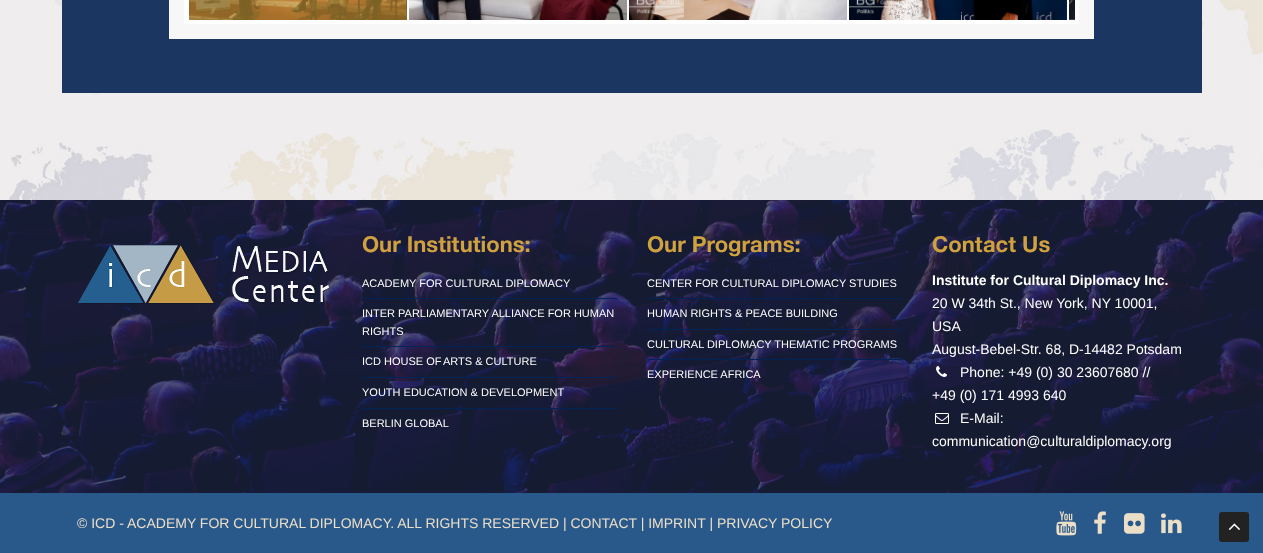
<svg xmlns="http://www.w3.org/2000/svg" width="1263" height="553">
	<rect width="100%" height="100%" fill="#FFFFFF" />
	<image x="0" y="0" width="1263" height="200" href="assets/img6.png" />
	<rect x="62" y="0" width="1140" height="93" fill="#1A3661" />
	<rect x="169" y="0" width="925" height="39" fill="#F7F7F7" />
	<rect x="186" y="-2" width="891" height="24" fill="none" stroke="#FFFFFF" stroke-width="4" />
	<rect x="189" y="0" width="218" height="20" fill="#CFA23F" />
	<rect x="407" y="0" width="2" height="20" fill="#FFFFFF" />
	<rect x="188" y="0" width="1" height="20" fill="#FFFFFF" />
	<image x="189" y="0" width="218" height="20" href="assets/img1.png" />
	<rect x="627" y="0" width="2" height="20" fill="#FFFFFF" />
	<image x="409" y="0" width="218" height="20" href="assets/img2.png" />
	<rect x="847" y="0" width="2" height="20" fill="#FFFFFF" />
	<image x="629" y="0" width="218" height="20" href="assets/img3.png" />
	<rect x="1067" y="0" width="2" height="20" fill="#FFFFFF" />
	<image x="849" y="0" width="218" height="20" href="assets/img4.png" />
	<image x="1069" y="0" width="6" height="20" href="assets/img5.png" />
	<image x="0" y="200" width="1263" height="293" href="assets/img7.png" />
	<rect x="0" y="200" width="1263" height="293" fill="#1E2745" fill-opacity="0.7" />
	<image x="78" y="245" width="253" height="59" href="assets/img8.png" />
	<text x="362" y="252" font-family="'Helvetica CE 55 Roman'" font-size="22" font-weight="700" fill="#CFA23F">Our Institutions:</text>
	<text x="362" y="287" font-family="Liberation Sans" font-size="11" fill="#FFFFFF">ACADEMY FOR CULTURAL DIPLOMACY</text>
	<rect x="362" y="298" width="255" height="1" fill="#002459" />
	<g font-family="Liberation Sans" font-size="11" fill="#FFFFFF">
		<text x="362" y="317">INTER PARLIAMENTARY ALLIANCE FOR HUMAN</text>
		<text x="362" y="335">RIGHTS</text>
	</g>
	<rect x="362" y="346" width="255" height="1" fill="#002459" />
	<g font-family="Liberation Sans" font-size="11" fill="#FFFFFF">
		<text x="362" y="365">ICD HOUSE OF</text>
		<text x="443" y="365">ARTS &amp; CULTURE</text>
	</g>
	<rect x="362" y="377" width="255" height="1" fill="#002459" />
	<text x="362" y="396" font-family="Liberation Sans" font-size="11" fill="#FFFFFF">YOUTH EDUCATION &amp; DEVELOPMENT</text>
	<rect x="362" y="408" width="255" height="1" fill="#002459" />
	<text x="362" y="427" font-family="Liberation Sans" font-size="11" fill="#FFFFFF">BERLIN GLOBAL</text>
	<text x="647" y="252" font-family="'Helvetica CE 55 Roman'" font-size="22" font-weight="700" fill="#CFA23F">Our Programs:</text>
	<text x="647" y="287" font-family="Liberation Sans" font-size="11" fill="#FFFFFF">CENTER FOR CULTURAL DIPLOMACY STUDIES</text>
	<rect x="647" y="298" width="255" height="1" fill="#002459" />
	<text x="647" y="317" font-family="Liberation Sans" font-size="11" fill="#FFFFFF">HUMAN RIGHTS &amp; PEACE BUILDING</text>
	<rect x="647" y="329" width="255" height="1" fill="#002459" />
	<text x="647" y="348" font-family="Liberation Sans" font-size="11" fill="#FFFFFF">CULTURAL DIPLOMACY THEMATIC PROGRAMS</text>
	<rect x="647" y="359" width="255" height="1" fill="#002459" />
	<text x="647" y="378" font-family="Liberation Sans" font-size="11" fill="#FFFFFF">EXPERIENCE AFRICA</text>
	<text x="932" y="252" font-family="'Helvetica CE 55 Roman'" font-size="22" font-weight="700" fill="#CFA23F">Contact Us</text>
	<text x="932" y="285" font-family="Liberation Sans" font-size="14" font-weight="700" fill="#FFFFFF">Institute for Cultural Diplomacy Inc.</text>
	<g font-family="Liberation Sans" font-size="14" fill="#FFFFFF">
		<text x="932" y="308">20 W 34th St., New York, NY 10001,</text>
		<text x="932" y="331">USA</text>
		<text x="932" y="354">August-Bebel-Str. 68, D-14482 Potsdam</text>
	</g>
	<image x="936" y="366" width="11" height="11" href="assets/img9.png" />
	<g font-family="Liberation Sans" font-size="14" fill="#FFFFFF">
		<text x="960" y="377">Phone: +49 (0) 30 23607680 //</text>
		<text x="932" y="400">+49 (0) 171 4993 640</text>
	</g>
	<image x="935" y="413" width="14" height="11" href="assets/img10.png" />
	<g font-family="Liberation Sans" font-size="14" fill="#FFFFFF">
		<text x="960" y="423">E-Mail:</text>
		<text x="932" y="446">communication@culturaldiplomacy.org</text>
	</g>
	<rect x="0" y="493" width="1263" height="60" fill="#29588B" />
	<text x="77" y="528" font-family="Liberation Sans" font-size="14" fill="#ECDFC7">© ICD - ACADEMY FOR CULTURAL DIPLOMACY. ALL RIGHTS RESERVED | CONTACT | IMPRINT | PRIVACY POLICY</text>
	<image x="1056" y="511" width="21" height="25" href="assets/img11.png" />
	<image x="1094" y="511" width="12" height="23" href="assets/img12.png" />
	<image x="1124" y="513" width="21" height="21" href="assets/img13.png" />
	<image x="1161" y="513" width="21" height="21" href="assets/img14.png" />
	<rect x="1219" y="512" width="30" height="30" rx="3" fill="#222222" />
	<image x="1228" y="523" width="12" height="7" href="assets/img15.png" />
</svg>
